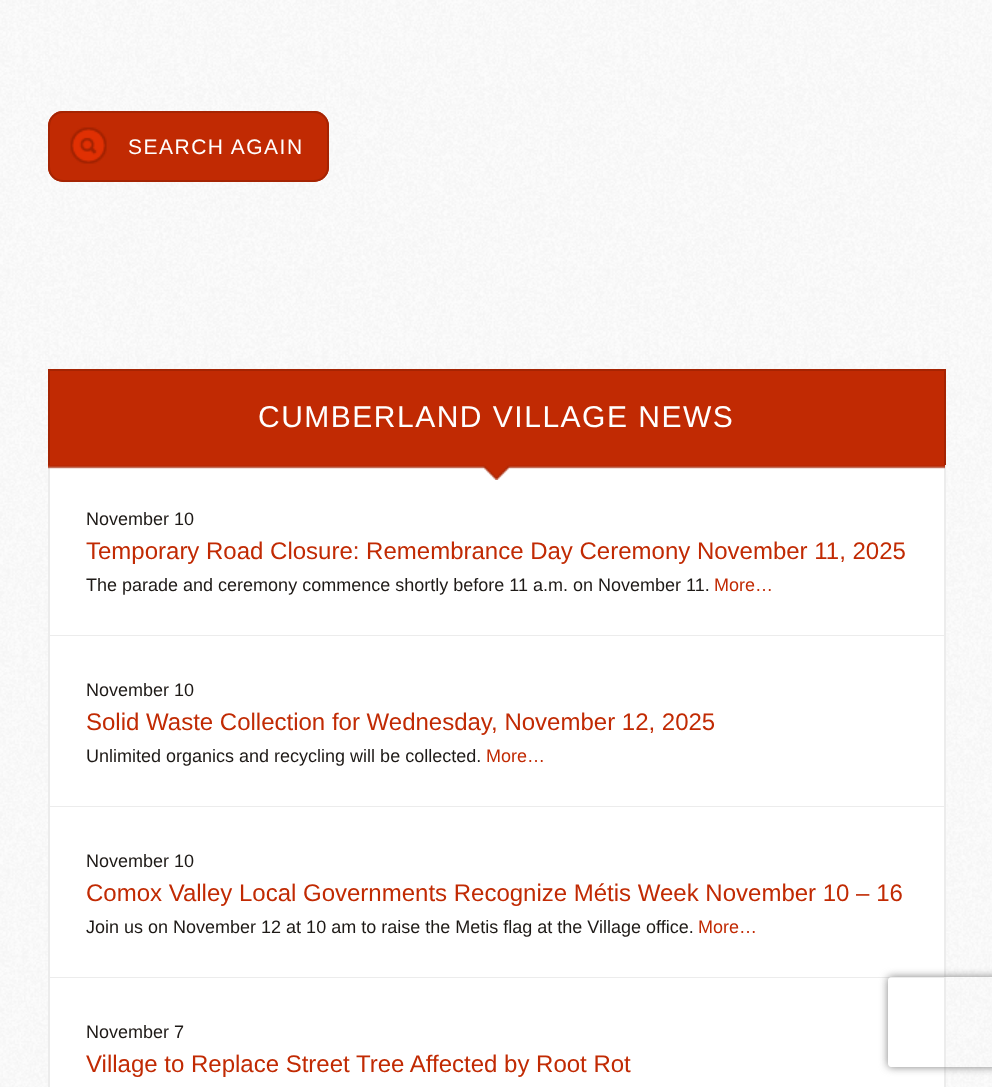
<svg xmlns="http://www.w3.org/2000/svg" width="992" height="1087">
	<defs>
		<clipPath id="clip1"><path d="M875 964H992V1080H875ZM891 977H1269C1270.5 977 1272 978.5 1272 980V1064C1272 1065.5 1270.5 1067 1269 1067H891C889.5 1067 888 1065.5 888 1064V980C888 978.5 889.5 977 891 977Z" clip-rule="evenodd" /></clipPath>
	</defs>
	<rect width="100%" height="100%" fill="#FFFFFF" />
	<image x="0" y="0" width="992" height="1087" href="assets/img1.png" />
	<rect x="48" y="111" width="281" height="71" rx="15" fill="#C12A03" />
	<image x="70" y="127" width="37" height="37" href="assets/img2.png" />
	<rect x="49" y="112" width="279" height="69" rx="14" fill="none" stroke="#A52403" stroke-width="2" />
	<text x="128" y="154" font-family="Liberation Sans" font-size="21" letter-spacing="1.5" fill="#FFFFFF">SEARCH AGAIN</text>
	<rect x="50" y="466" width="894" height="169" fill="#FFFFFF" />
	<rect x="50" y="371" width="894" height="94" fill="#C12A03" />
	<rect x="48" y="369" width="897" height="2" fill="#A52403" />
	<rect x="944" y="369" width="2" height="96" fill="#A52403" />
	<rect x="48" y="369" width="2" height="96" fill="#A52403" />
	<text x="258" y="427" font-family="Liberation Sans" font-size="30" letter-spacing="1.5" fill="#FFFFFF">CUMBERLAND VILLAGE NEWS</text>
	<rect x="944" y="465" width="2" height="622" fill="#ECECEC" />
	<rect x="48" y="465" width="2" height="622" fill="#ECECEC" />
	<image x="48" y="465" width="897" height="15" href="assets/img3.png" />
	<rect x="50" y="635" width="894" height="1" fill="#ECECEC" />
	<text x="86" y="525" font-family="Liberation Sans" font-size="18" fill="#1E1A17">November 10</text>
	<text x="86" y="559" font-family="Liberation Sans" font-size="24" fill="#C12A03">Temporary Road Closure: Remembrance Day Ceremony November 11, 2025</text>
	<text x="86" y="591" font-family="Liberation Sans" font-size="18" fill="#1E1A17">The parade and ceremony commence shortly before 11 a.m. on November 11.</text>
	<text x="714" y="591" font-family="Liberation Sans" font-size="18" fill="#C12A03">More…</text>
	<rect x="50" y="636" width="894" height="170" fill="#FFFFFF" />
	<rect x="50" y="806" width="894" height="1" fill="#ECECEC" />
	<text x="86" y="696" font-family="Liberation Sans" font-size="18" fill="#1E1A17">November 10</text>
	<text x="86" y="730" font-family="Liberation Sans" font-size="24" fill="#C12A03">Solid Waste Collection for Wednesday, November 12, 2025</text>
	<text x="86" y="762" font-family="Liberation Sans" font-size="18" fill="#1E1A17">Unlimited organics and recycling will be collected.</text>
	<text x="486" y="762" font-family="Liberation Sans" font-size="18" fill="#C12A03">More…</text>
	<rect x="50" y="807" width="894" height="170" fill="#FFFFFF" />
	<rect x="50" y="977" width="894" height="1" fill="#ECECEC" />
	<text x="86" y="867" font-family="Liberation Sans" font-size="18" fill="#1E1A17">November 10</text>
	<text x="86" y="901" font-family="Liberation Sans" font-size="24" fill="#C12A03">Comox Valley Local Governments Recognize Métis Week November 10 – 16</text>
	<text x="86" y="933" font-family="Liberation Sans" font-size="18" fill="#1E1A17">Join us on November 12 at 10 am to raise the Metis flag at the Village office.</text>
	<text x="698" y="933" font-family="Liberation Sans" font-size="18" fill="#C12A03">More…</text>
	<rect x="50" y="978" width="894" height="109" fill="#FFFFFF" />
	<text x="86" y="1038" font-family="Liberation Sans" font-size="18" fill="#1E1A17">November 7</text>
	<text x="86" y="1072" font-family="Liberation Sans" font-size="24" fill="#C12A03">Village to Replace Street Tree Affected by Root Rot</text>
	<g clip-path="url(#clip1)">
		<rect x="888" y="977" width="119" height="90" rx="3" fill="#808080" filter="blur(4px)" />
	</g>
</svg>
